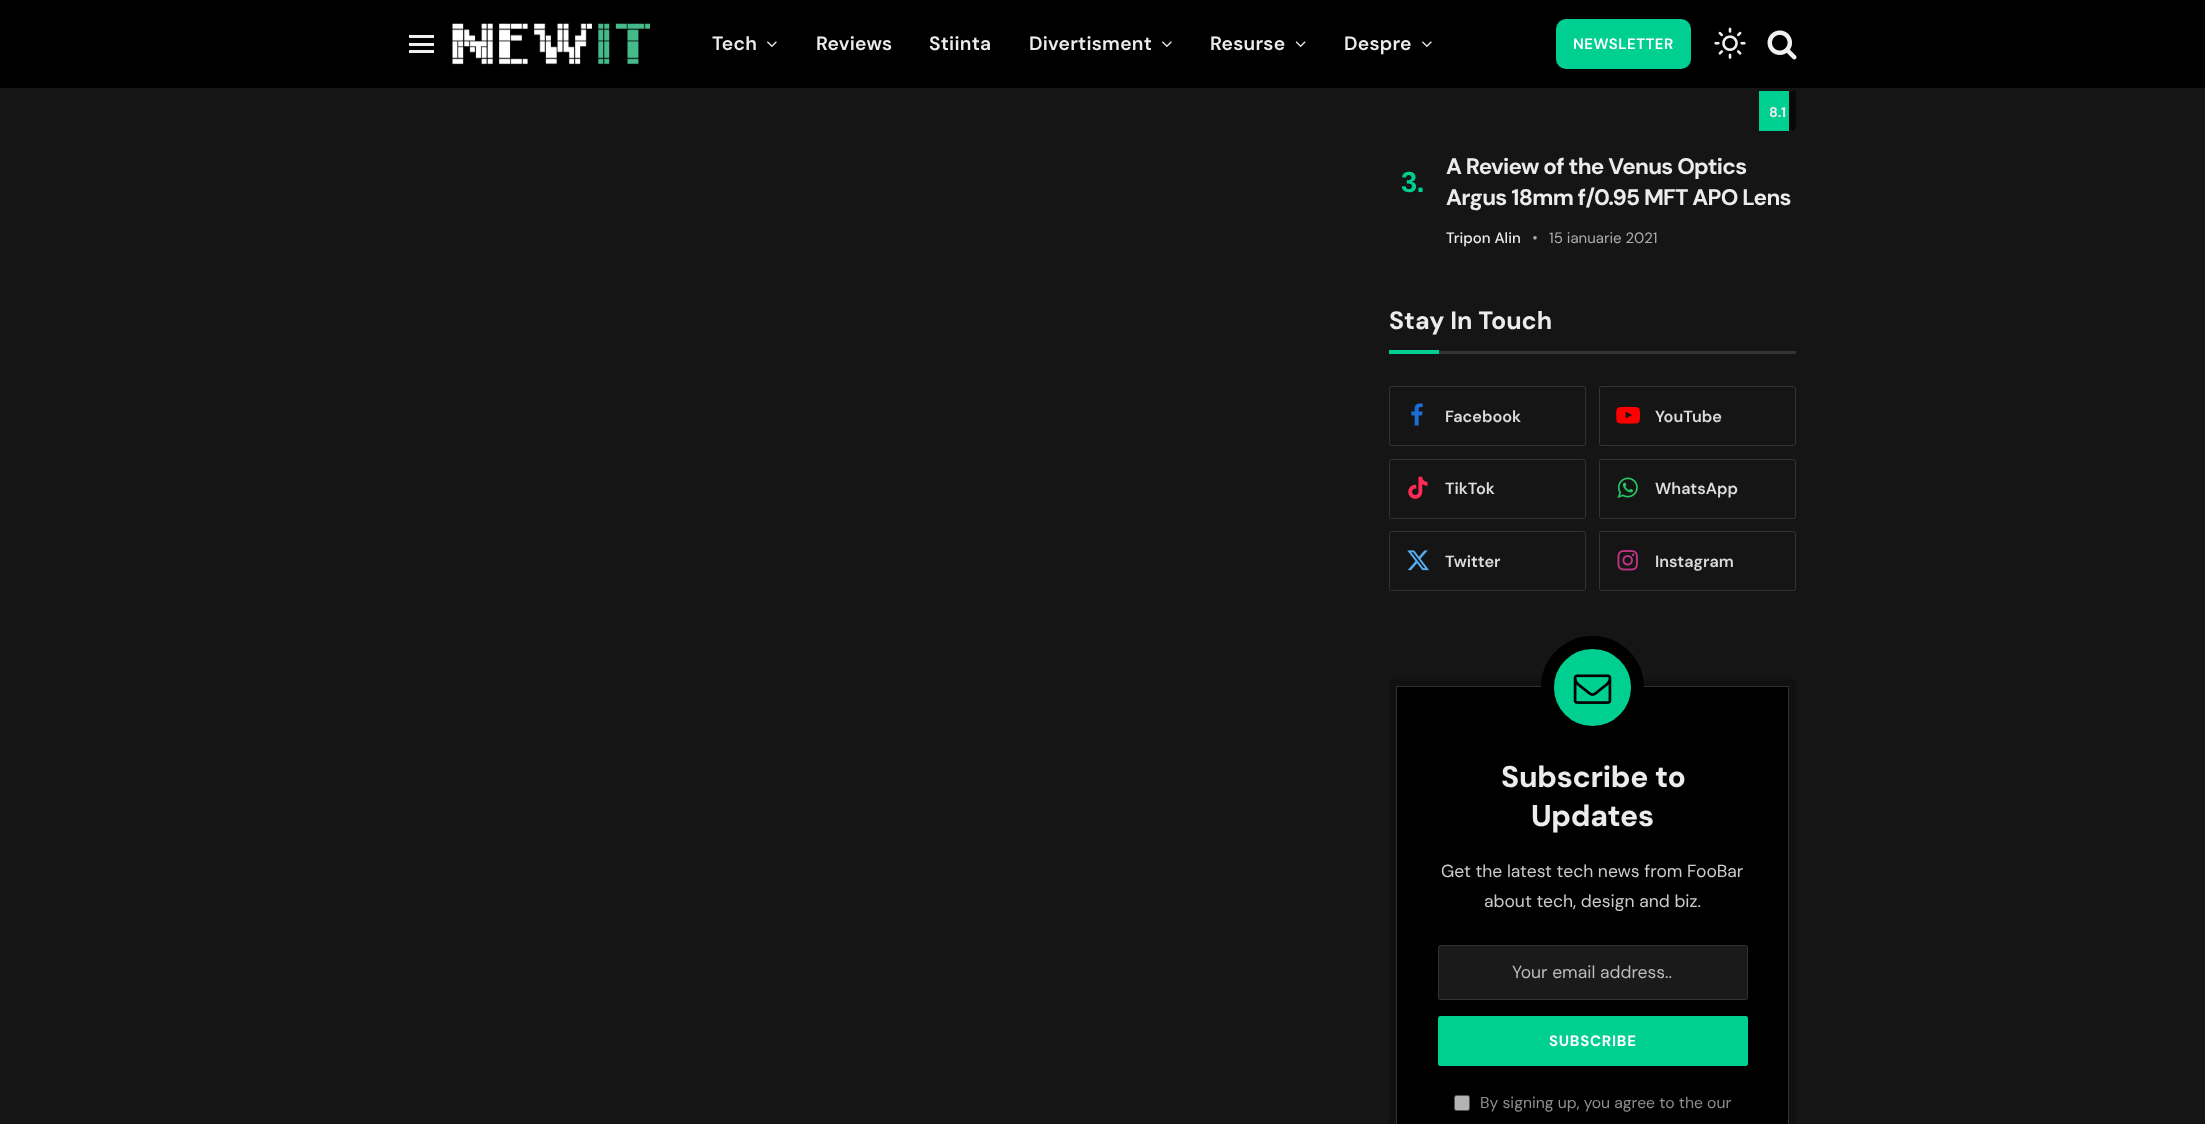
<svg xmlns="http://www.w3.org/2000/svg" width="2205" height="1124">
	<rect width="100%" height="100%" fill="#151516" />
	<rect x="0" y="0" width="2205" height="88" fill="#000000" />
	<rect x="409" y="50" width="25" height="3" fill="#F0F0F0" />
	<rect x="409" y="35" width="25" height="3" fill="#F0F0F0" />
	<rect x="409" y="43" width="25" height="3" fill="#F0F0F0" />
	<image x="452" y="23" width="198" height="42" href="assets/img1.png" />
	<text x="712" y="50" font-family="DM Sans" font-size="19.25" font-weight="600" letter-spacing="0.25" fill="#ECECEC">Tech</text>
	<image x="767" y="41" width="10" height="6" href="assets/img2.png" />
	<g font-family="DM Sans" font-size="19.25" font-weight="600" letter-spacing="0.25" fill="#ECECEC">
		<text x="816" y="50">Reviews</text>
		<text x="929" y="50">Stiinta</text>
		<text x="1029" y="50">Divertisment</text>
	</g>
	<image x="1162" y="41" width="10" height="6" href="assets/img2.png" />
	<text x="1210" y="50" font-family="DM Sans" font-size="19.25" font-weight="600" letter-spacing="0.25" fill="#ECECEC">Resurse</text>
	<image x="1295" y="41" width="11" height="6" href="assets/img3.png" />
	<text x="1344" y="50" font-family="DM Sans" font-size="19.25" font-weight="600" letter-spacing="0.25" fill="#ECECEC">Despre</text>
	<image x="1422" y="41" width="10" height="6" href="assets/img2.png" />
	<rect x="1556" y="19" width="135" height="50" rx="10" fill="#00CF92" />
	<text x="1573" y="49" font-family="DM Sans" font-size="15" font-weight="600" letter-spacing="0.5" fill="#FFFFFF">NEWSLETTER</text>
	<image x="1714" y="27" width="32" height="32" href="assets/img4.png" />
	<image x="1767" y="30" width="30" height="30" href="assets/img5.png" />
	<path d="M1759 91H1796V126C1796 129 1794 131 1791 131H1759Z" fill="#080808" />
	<rect x="1759" y="91" width="30" height="40" fill="#00CF92" />
	<text x="1769" y="117" font-family="DM Sans" font-size="14" font-weight="700" fill="#ECECEC">8.1</text>
	<text x="1401" y="192" font-family="Liberation Sans" font-size="29" font-weight="700" letter-spacing="-0.7" fill="#00CF92">3.</text>
	<g font-family="DM Sans" font-size="22.5" font-weight="700" letter-spacing="-0.7" fill="#ECECEC">
		<text x="1446" y="174">A Review of the Venus Optics</text>
		<text x="1446" y="205">Argus 18mm f/0.95 MFT APO Lens</text>
	</g>
	<text x="1446" y="243" font-family="DM Sans" font-size="15" font-weight="500" fill="#ECECEC">Tripon Alin</text>
	<text x="1532" y="248" font-family="DM Sans" font-size="30" fill="#ADADAD">·</text>
	<text x="1549" y="243" font-family="DM Sans" font-size="15" fill="#ADADAD">15 ianuarie 2021</text>
	<rect x="1439" y="351" width="357" height="3" fill="#333334" />
	<text x="1389" y="329" font-family="DM Sans" font-size="25" font-weight="700" fill="#ECECEC">Stay In Touch</text>
	<rect x="1389" y="350" width="50" height="4" fill="#00CF92" />
	<rect x="1389.5" y="386.5" width="196" height="59" rx="2" fill="none" stroke="#333334" />
	<image x="1411" y="403" width="12" height="23" href="assets/img6.png" />
	<text x="1445" y="422" font-family="DM Sans" font-size="16.25" font-weight="600" fill="#DDDDDD">Facebook</text>
	<rect x="1599.5" y="386.5" width="196" height="59" rx="2" fill="none" stroke="#333334" />
	<image x="1616" y="406" width="24" height="18" href="assets/img7.png" />
	<text x="1655" y="422" font-family="DM Sans" font-size="16.25" font-weight="600" fill="#DDDDDD">YouTube</text>
	<rect x="1389.5" y="459.5" width="196" height="59" rx="2" fill="none" stroke="#333334" />
	<image x="1408" y="476" width="20" height="23" href="assets/img8.png" />
	<text x="1445" y="494" font-family="DM Sans" font-size="16.25" font-weight="600" fill="#DDDDDD">TikTok</text>
	<rect x="1599.5" y="459.5" width="196" height="59" rx="2" fill="none" stroke="#333334" />
	<image x="1617" y="477" width="21" height="21" href="assets/img9.png" />
	<text x="1655" y="494" font-family="DM Sans" font-size="16.25" font-weight="600" fill="#DDDDDD">WhatsApp</text>
	<rect x="1389.5" y="531.5" width="196" height="59" rx="2" fill="none" stroke="#333334" />
	<image x="1407" y="550" width="22" height="21" href="assets/img10.png" />
	<text x="1445" y="567" font-family="DM Sans" font-size="16.25" font-weight="600" fill="#DDDDDD">Twitter</text>
	<rect x="1599.5" y="531.5" width="196" height="59" rx="2" fill="none" stroke="#333334" />
	<image x="1617" y="550" width="21" height="21" href="assets/img11.png" />
	<text x="1655" y="567" font-family="DM Sans" font-size="16.25" font-weight="600" fill="#DDDDDD">Instagram</text>
	<rect x="1393" y="683" width="399" height="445" fill="#000000" stroke="#111111" stroke-width="8" />
	<rect x="1396.5" y="686.5" width="392" height="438" fill="none" stroke="#303030" />
	<circle cx="1592.5" cy="687.5" r="45" fill="#00CF92" stroke="#000000" stroke-width="13" />
	<image x="1573" y="674" width="39" height="30" href="assets/img12.png" />
	<g font-family="DM Sans" font-size="30" font-weight="800" letter-spacing="-0.25" fill="#ECECEC">
		<text x="1501" y="787">Subscribe to</text>
		<text x="1531" y="826">Updates</text>
	</g>
	<g font-family="DM Sans" font-size="17.5" fill="#CCCCCC">
		<text x="1441" y="877">Get the latest tech news from FooBar</text>
		<text x="1484" y="907">about tech, design and biz.</text>
	</g>
	<rect x="1438.5" y="945.5" width="309" height="54" rx="2" fill="#1A1A1A" stroke="#333333" />
	<text x="1512" y="978" font-family="DM Sans" font-size="17.5" fill="#BBBBBB">Your email address..</text>
	<rect x="1438" y="1016" width="310" height="50" rx="2.5" fill="#00CF92" />
	<text x="1549" y="1046" font-family="DM Sans" font-size="15" font-weight="700" letter-spacing="0.75" fill="#FFFFFF">SUBSCRIBE</text>
	<rect x="1454.5" y="1095.5" width="15" height="15" rx="2" fill="#B3B3B3" stroke="#535353" />
	<text x="1480" y="1108" font-family="DM Sans" font-size="15.75" fill="#8F8F8F">By signing up, you agree to the our</text>
</svg>
